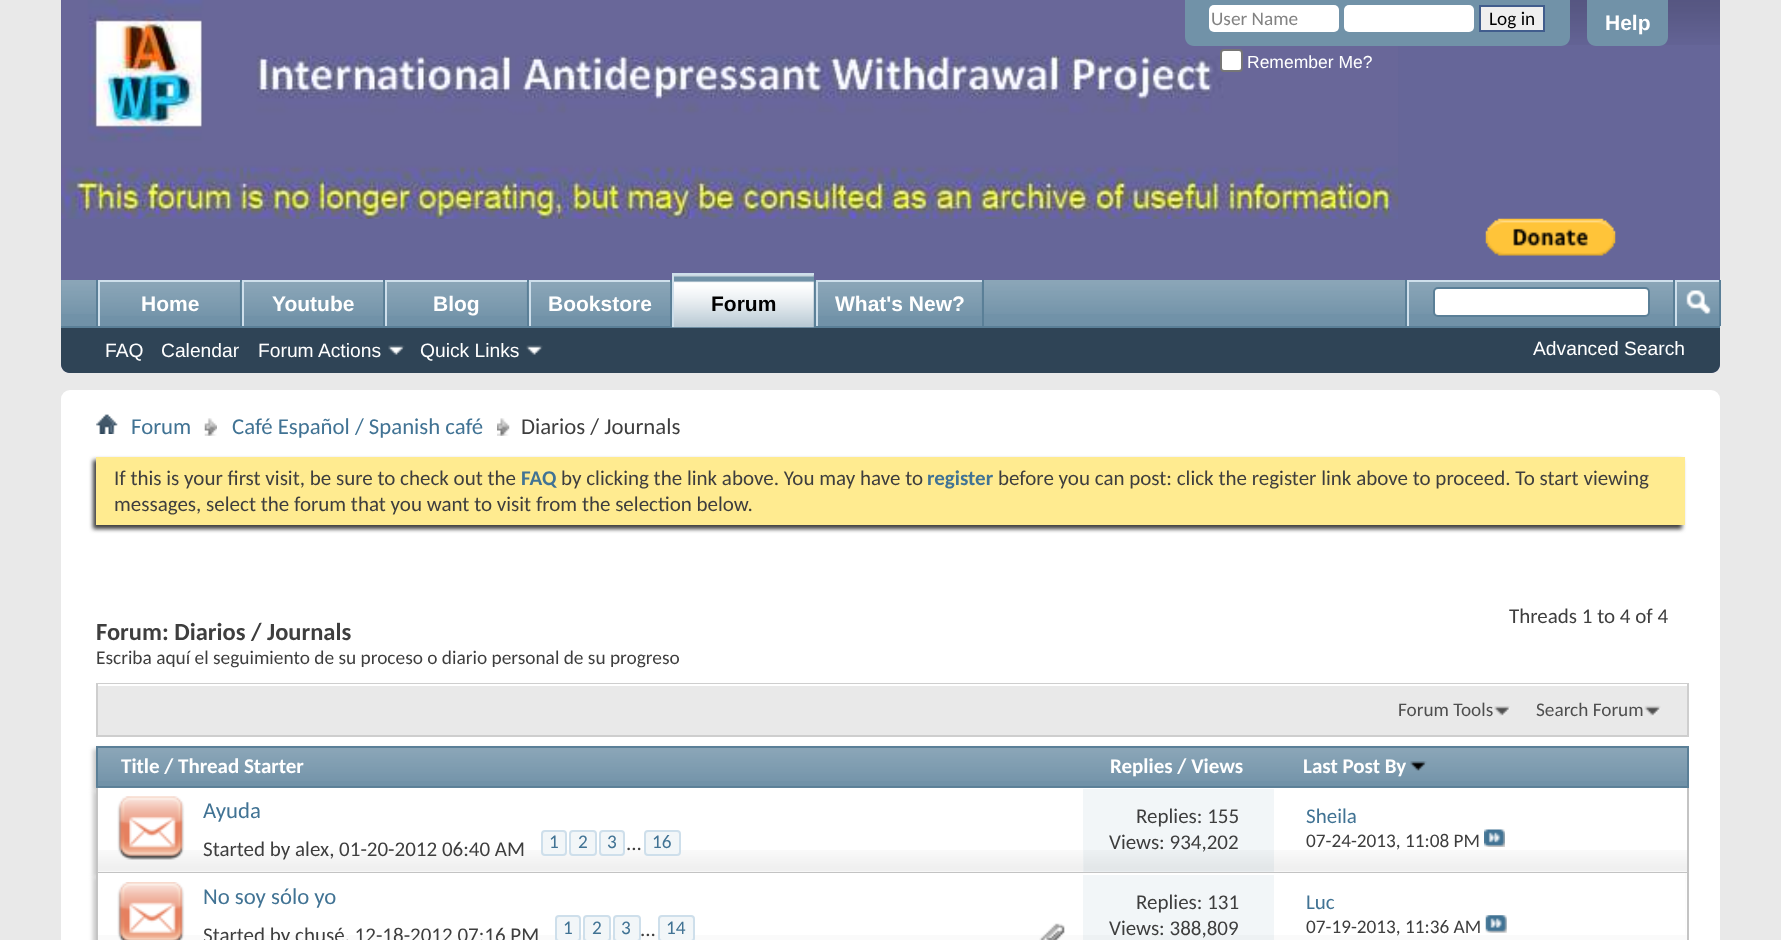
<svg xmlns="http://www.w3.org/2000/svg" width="1781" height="940">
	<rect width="100%" height="100%" fill="#E9E9E9" />
	<path d="M61 0H1720V364C1720 369 1716 373 1711 373H70C65 373 61 369 61 364Z" fill="#666699" />
	<image x="61" y="0" width="1659" height="45" href="assets/img1.png" />
	<image x="61" y="0" width="1338" height="219" href="assets/img2.png" />
	<path d="M1185 0H1570V37C1570 42 1566 46 1561 46H1194C1189 46 1185 42 1185 37Z" fill="#7192A8" />
	<rect x="1209" y="5" width="130" height="27" rx="5" fill="#FFFFFF" />
	<text x="1211" y="25" font-family="Carlito" font-size="19.25" fill="#828282">User Name</text>
	<rect x="1344" y="5" width="130" height="27" rx="5" fill="#FFFFFF" />
	<rect x="1480" y="6" width="64" height="25" fill="#EFEFEF" stroke="#415D8D" stroke-width="2" />
	<text x="1489" y="25" font-family="Carlito" font-size="19.25" fill="#000000">Log in</text>
	<rect x="1221" y="50" width="21" height="21" rx="3" fill="#FFFFFF" stroke="#767676" stroke-width="2" />
	<text x="1247" y="68" font-family="Liberation Sans" font-size="17.5" fill="#FFFFFF">Remember Me?</text>
	<path d="M1587 0H1668V37C1668 42 1664 46 1659 46H1596C1591 46 1587 42 1587 37Z" fill="#7192A8" />
	<text x="1605" y="30" font-family="Liberation Sans" font-size="21" font-weight="700" fill="#FFFFFF">Help</text>
	<image x="1485" y="218" width="131" height="38" href="assets/img3.png" />
	<path d="M61 280H1720V364C1720 369 1716 373 1711 373H70C65 373 61 369 61 364Z" fill="#2F4456" />
	<rect x="61" y="280" width="1658" height="46" fill="#7192A8" />
	<image x="61" y="280" width="1658" height="34" href="assets/img4.png" />
	<rect x="383" y="280" width="2" height="47" fill="#5A7F97" />
	<rect x="244" y="282" width="139" height="32" fill="#7192A8" />
	<rect x="240" y="280" width="2" height="47" fill="#5A7F97" />
	<image x="241" y="281" width="143" height="35" href="assets/img5.png" />
	<rect x="242" y="280" width="141" height="2" fill="#CEDFEB" />
	<rect x="242" y="280" width="2" height="47" fill="#CEDFEB" />
	<text x="272" y="311" font-family="Liberation Sans" font-size="21" font-weight="700" fill="#FFFFFF">Youtube</text>
	<rect x="527" y="280" width="2" height="47" fill="#5A7F97" />
	<rect x="387" y="282" width="140" height="32" fill="#7192A8" />
	<image x="387" y="282" width="140" height="34" href="assets/img6.png" />
	<rect x="385" y="280" width="142" height="2" fill="#CEDFEB" />
	<rect x="385" y="280" width="2" height="47" fill="#CEDFEB" />
	<text x="433" y="311" font-family="Liberation Sans" font-size="21" font-weight="700" fill="#FFFFFF">Blog</text>
	<rect x="670" y="280" width="2" height="47" fill="#5A7F97" />
	<rect x="531" y="282" width="139" height="32" fill="#7192A8" />
	<image x="528" y="281" width="143" height="35" href="assets/img5.png" />
	<rect x="529" y="280" width="141" height="2" fill="#CEDFEB" />
	<rect x="529" y="280" width="2" height="47" fill="#CEDFEB" />
	<text x="548" y="311" font-family="Liberation Sans" font-size="21" font-weight="700" fill="#FFFFFF">Bookstore</text>
	<rect x="982" y="280" width="2" height="47" fill="#5A7F97" />
	<rect x="818" y="282" width="164" height="32" fill="#7192A8" />
	<rect x="814" y="280" width="2" height="46" fill="#5A7F97" />
	<image x="815" y="281" width="167" height="35" href="assets/img7.png" />
	<rect x="816" y="280" width="166" height="2" fill="#CEDFEB" />
	<rect x="816" y="280" width="2" height="47" fill="#CEDFEB" />
	<text x="835" y="311" font-family="Liberation Sans" font-size="21" font-weight="700" fill="#FFFFFF">What's New?</text>
	<rect x="96" y="280" width="2" height="47" fill="#5A7F97" />
	<rect x="98" y="280" width="142" height="2" fill="#CEDFEB" />
	<rect x="98" y="280" width="2" height="47" fill="#CEDFEB" />
	<rect x="61" y="326" width="1659" height="2" fill="#5A7F97" />
	<rect x="674" y="275" width="140" height="52" fill="#7192A8" />
	<image x="672" y="275" width="142" height="53" href="assets/img8.png" />
	<rect x="672" y="273" width="142" height="2" fill="#CEDFEB" />
	<rect x="672" y="273" width="2" height="54" fill="#CEDFEB" />
	<text x="711" y="311" font-family="Liberation Sans" font-size="21" font-weight="700" fill="#000000">Forum</text>
	<g font-family="Liberation Sans" font-size="19.25" fill="#FFFFFF">
		<text x="105" y="357">FAQ</text>
		<text x="161" y="357">Calendar</text>
		<text x="258" y="357">Forum Actions</text>
	</g>
	<image x="388" y="345" width="17" height="10" href="assets/img9.png" />
	<text x="420" y="357" font-family="Liberation Sans" font-size="19.25" fill="#FFFFFF">Quick Links</text>
	<image x="526" y="345" width="17" height="10" href="assets/img10.png" />
	<rect x="100" y="282" width="140" height="32" fill="#7192A8" />
	<image x="100" y="282" width="140" height="34" href="assets/img6.png" />
	<text x="141" y="311" font-family="Liberation Sans" font-size="21" font-weight="700" fill="#FFFFFF">Home</text>
	<rect x="1405" y="280" width="2" height="46" fill="#5A7F97" />
	<rect x="1407" y="280" width="266" height="2" fill="#CEDFEB" />
	<rect x="1407" y="280" width="2" height="46" fill="#CEDFEB" />
	<rect x="1434" y="288" width="215" height="28" rx="4" fill="#FFFFFF" stroke="#5A7F97" stroke-width="2" />
	<rect x="1719" y="280" width="2" height="46" fill="#5A7F97" />
	<rect x="1673" y="280" width="2" height="46" fill="#5A7F97" />
	<rect x="1675" y="280" width="44" height="2" fill="#CEDFEB" />
	<rect x="1675" y="280" width="2" height="46" fill="#CEDFEB" />
	<image x="1686" y="290" width="25" height="25" href="assets/img11.png" />
	<text x="1533" y="355" font-family="Liberation Sans" font-size="19.25" fill="#FFFFFF">Advanced Search</text>
	<rect x="61" y="390" width="1659" height="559" rx="9" fill="#FFFFFF" />
	<image x="96" y="414" width="22" height="20" href="assets/img12.png" />
	<image x="204" y="418" width="13" height="18" href="assets/img13.png" />
	<text x="131" y="434" font-family="Carlito" font-size="22.75" fill="#417394">Forum</text>
	<image x="497" y="418" width="13" height="18" href="assets/img14.png" />
	<text x="232" y="434" font-family="Carlito" font-size="22.75" fill="#417394">Café Español / Spanish café</text>
	<text x="521" y="434" font-family="Carlito" font-size="22.75" fill="#3E3E3E">Diarios / Journals</text>
	<rect x="93" y="460" width="1589" height="69" fill="#3E3E3E" filter="blur(2px)" />
	<rect x="96" y="457" width="1589" height="68" fill="#FFEB90" />
	<text x="114" y="485" font-family="Carlito" font-size="21" fill="#3E3E3E">If this is your first visit, be sure to check out the</text>
	<text x="521" y="485" font-family="Carlito" font-size="21" font-weight="700" fill="#417394">FAQ</text>
	<text x="561" y="485" font-family="Carlito" font-size="21" fill="#3E3E3E">by clicking the link above. You may have to</text>
	<text x="927" y="485" font-family="Carlito" font-size="21" font-weight="700" fill="#417394">register</text>
	<g font-family="Carlito" font-size="21" fill="#3E3E3E">
		<text x="998" y="485">before you can post: click the register link above to proceed. To start viewing</text>
		<text x="114" y="511">messages, select the forum that you want to visit from the selection below.</text>
		<text x="1509" y="623">Threads 1 to 4 of 4</text>
	</g>
	<text x="96" y="640" font-family="Carlito" font-size="24.5" font-weight="700" fill="#3E3E3E">Forum: Diarios / Journals</text>
	<text x="96" y="664" font-family="Carlito" font-size="19.35" fill="#3E3E3E">Escriba aquí el seguimiento de su proceso o diario personal de su progreso</text>
	<rect x="98" y="686" width="1589" height="49" fill="#E9E9E9" />
	<rect x="97" y="684" width="1591" height="52" fill="none" stroke="#CECECE" stroke-width="2" />
	<rect x="98" y="684" width="1589" height="1" fill="#FFFFFF" />
	<image x="1494" y="706" width="16" height="11" href="assets/img15.png" />
	<text x="1398" y="716" font-family="Carlito" font-size="19.25" fill="#4E4E4E">Forum Tools</text>
	<image x="1644" y="705" width="17" height="12" href="assets/img16.png" />
	<text x="1536" y="716" font-family="Carlito" font-size="19.25" fill="#4E4E4E">Search Forum</text>
	<rect x="93" y="749" width="1592" height="42" fill="#C8C8C8" filter="blur(2px)" />
	<rect x="98" y="748" width="1589" height="38" fill="#7192A8" />
	<image x="98" y="748" width="1589" height="33" href="assets/img17.png" />
	<rect x="97" y="747" width="1591" height="40" fill="none" stroke="#5A7F97" stroke-width="2" />
	<g font-family="Carlito" font-size="21" font-weight="700" fill="#FFFFFF">
		<text x="121" y="773">Title / Thread Starter</text>
		<text x="1110" y="773">Replies / Views</text>
		<text x="1303" y="773">Last Post By</text>
	</g>
	<image x="1410" y="761" width="17" height="10" href="assets/img18.png" />
	<rect x="93" y="791" width="1589" height="86" fill="#C8C8C8" filter="blur(2px)" />
	<rect x="98" y="788" width="1589" height="84" fill="#FFFFFF" />
	<image x="98" y="850" width="1589" height="22" href="assets/img19.png" />
	<rect x="1687" y="788" width="2" height="85" fill="#C4C4C4" />
	<rect x="96" y="872" width="1593" height="1" fill="#C4C4C4" />
	<rect x="96" y="788" width="2" height="85" fill="#C4C4C4" />
	<image x="117" y="796" width="68" height="64" href="assets/img20.png" />
	<text x="203" y="818" font-family="Carlito" font-size="22.75" fill="#417394">Ayuda</text>
	<text x="203" y="856" font-family="Carlito" font-size="21" fill="#3E3E3E">Started by alex, 01-20-2012 06:40 AM</text>
	<rect x="542" y="831" width="24" height="24" rx="3" fill="#F2F6F8" stroke="#CEDFEB" stroke-width="2" />
	<text x="549" y="848" font-family="Carlito" font-size="19.25" fill="#417394">1</text>
	<rect x="570" y="831" width="26" height="24" rx="3" fill="#F2F6F8" stroke="#CEDFEB" stroke-width="2" />
	<text x="578" y="848" font-family="Carlito" font-size="19.25" fill="#417394">2</text>
	<rect x="600" y="831" width="24" height="24" rx="3" fill="#F2F6F8" stroke="#CEDFEB" stroke-width="2" />
	<text x="607" y="848" font-family="Carlito" font-size="19.25" fill="#417394">3</text>
	<text x="626" y="850" font-family="Carlito" font-size="21" fill="#3E3E3E">...</text>
	<rect x="645" y="831" width="35" height="24" rx="3" fill="#F2F6F8" stroke="#CEDFEB" stroke-width="2" />
	<text x="652" y="848" font-family="Carlito" font-size="19.25" fill="#417394">16</text>
	<rect x="1083" y="789" width="191" height="83" fill="#F2F6F8" />
	<image x="1083" y="850" width="191" height="22" href="assets/img21.png" />
	<g font-family="Carlito" font-size="21" fill="#3E3E3E">
		<text x="1136" y="823">Replies: 155</text>
		<text x="1109" y="849">Views: 934,202</text>
	</g>
	<text x="1306" y="823" font-family="Carlito" font-size="21" fill="#417394">Sheila</text>
	<text x="1306" y="847" font-family="Carlito" font-size="19.25" fill="#3E3E3E">07-24-2013, 11:08 PM</text>
	<image x="1484" y="829" width="21" height="18" href="assets/img22.png" />
	<rect x="93" y="877" width="1589" height="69" fill="#C8C8C8" filter="blur(2px)" />
	<rect x="98" y="873" width="1587" height="62" fill="#FFFFFF" />
	<rect x="96" y="935" width="1593" height="5" fill="#FAFAFA" />
	<rect x="1687" y="873" width="2" height="67" fill="#C4C4C4" />
	<rect x="96" y="873" width="2" height="67" fill="#C4C4C4" />
	<image x="117" y="882" width="68" height="58" href="assets/img23.png" />
	<text x="203" y="904" font-family="Carlito" font-size="22.75" fill="#417394">No soy sólo yo</text>
	<text x="203" y="942" font-family="Carlito" font-size="21" fill="#3E3E3E">Started by chusé, 12-18-2012 07:16 PM</text>
	<rect x="556" y="916" width="24" height="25" rx="3" fill="#F2F6F8" stroke="#CEDFEB" stroke-width="2" />
	<text x="563" y="934" font-family="Carlito" font-size="19.25" fill="#417394">1</text>
	<rect x="584" y="916" width="26" height="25" rx="3" fill="#F2F6F8" stroke="#CEDFEB" stroke-width="2" />
	<text x="592" y="934" font-family="Carlito" font-size="19.25" fill="#417394">2</text>
	<rect x="614" y="916" width="26" height="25" rx="3" fill="#F2F6F8" stroke="#CEDFEB" stroke-width="2" />
	<text x="621" y="934" font-family="Carlito" font-size="19.25" fill="#417394">3</text>
	<rect x="659" y="916" width="35" height="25" rx="3" fill="#F2F6F8" stroke="#CEDFEB" stroke-width="2" />
	<text x="666" y="934" font-family="Carlito" font-size="19.25" fill="#417394">14</text>
	<text x="640" y="936" font-family="Carlito" font-size="21" fill="#3E3E3E">...</text>
	<image x="1039" y="923" width="26" height="17" href="assets/img24.png" />
	<rect x="1083" y="875" width="191" height="60" fill="#F2F6F8" />
	<rect x="1083" y="935" width="191" height="5" fill="#EDF1F3" />
	<g font-family="Carlito" font-size="21" fill="#3E3E3E">
		<text x="1136" y="909">Replies: 131</text>
		<text x="1109" y="935">Views: 388,809</text>
	</g>
	<text x="1306" y="909" font-family="Carlito" font-size="21" fill="#417394">Luc</text>
	<text x="1306" y="933" font-family="Carlito" font-size="19.25" fill="#3E3E3E">07-19-2013, 11:36 AM</text>
	<image x="1485" y="915" width="22" height="18" href="assets/img25.png" />
</svg>
